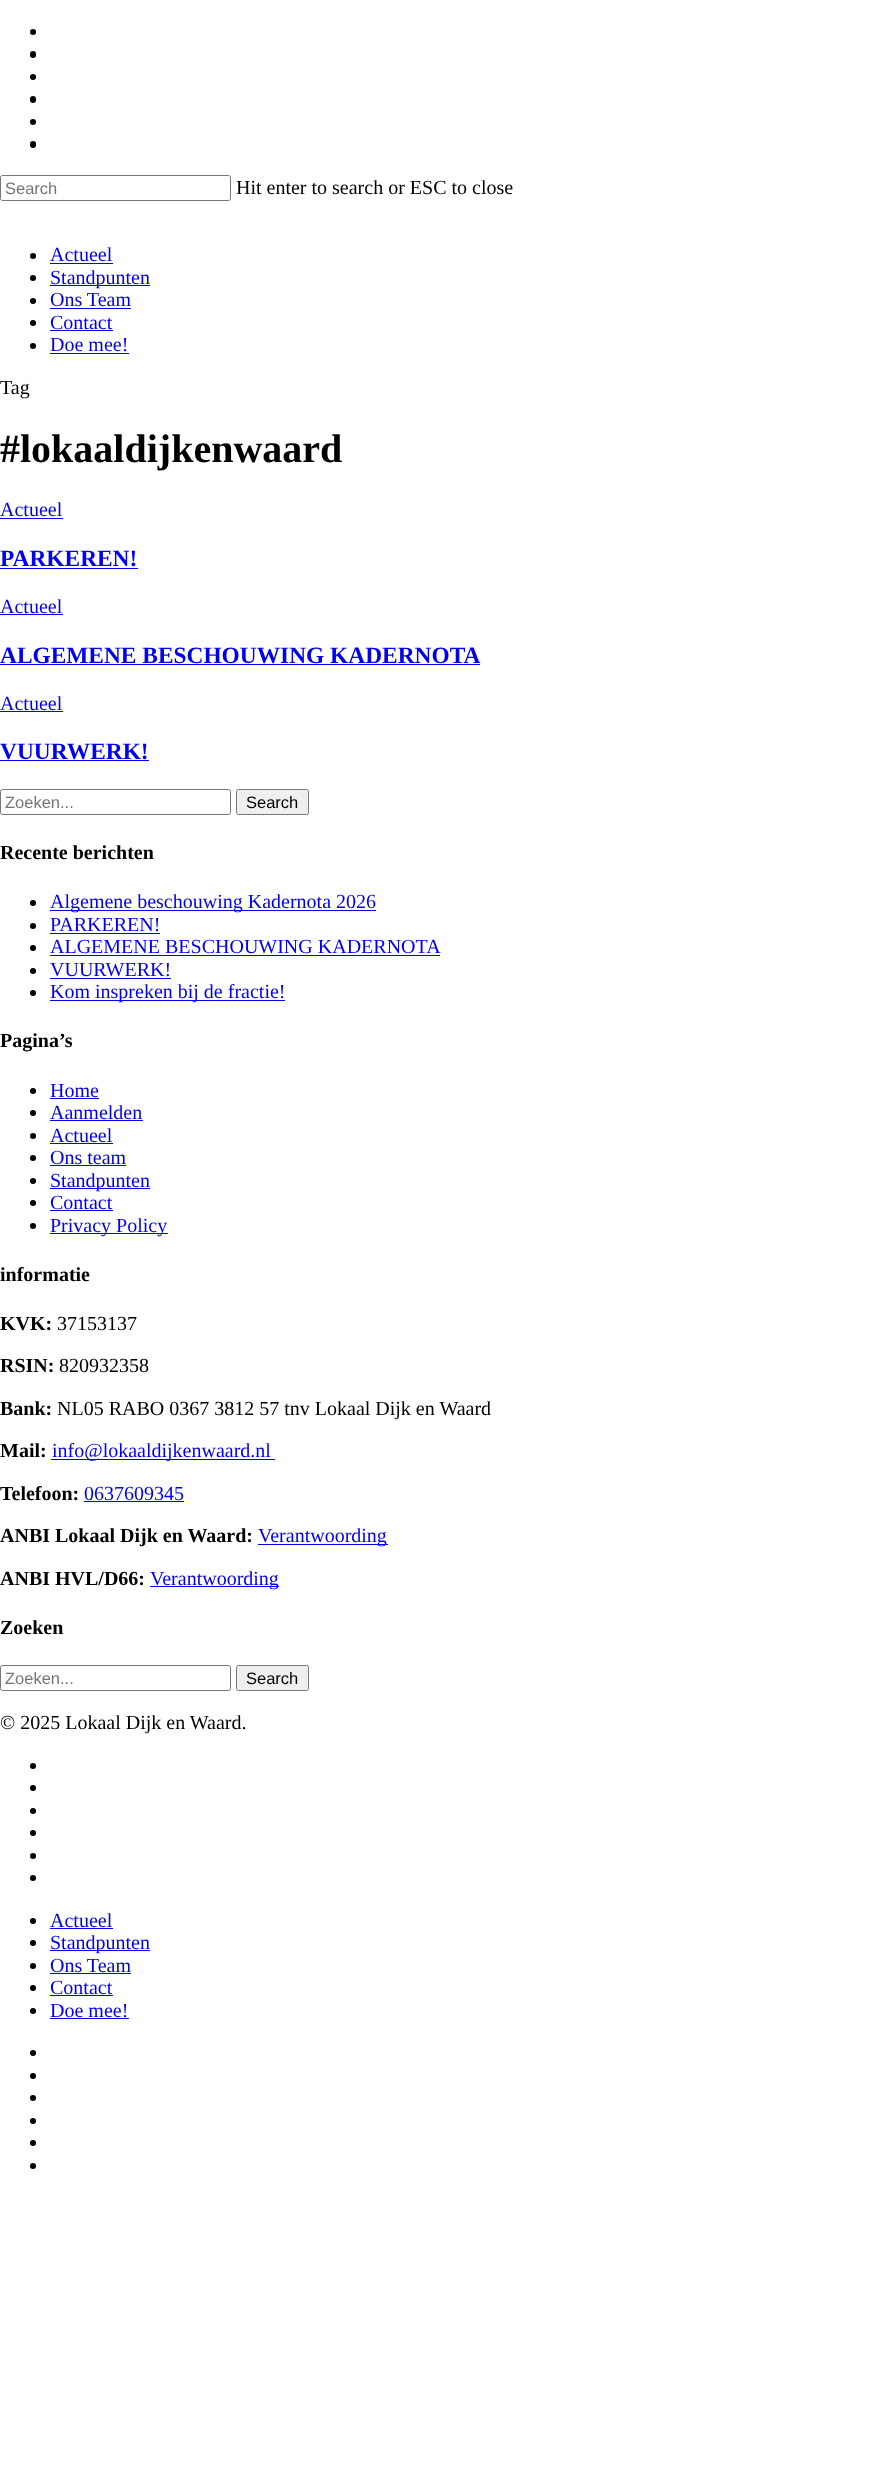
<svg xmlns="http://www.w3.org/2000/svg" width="869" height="2469">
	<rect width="100%" height="100%" fill="#FFFFFF" />
	<circle cx="33" cy="32" r="3" fill="#000000" />
	<rect x="30" y="51" width="6" height="7" rx="3" fill="#000000" />
	<circle cx="33" cy="77" r="3" fill="#000000" />
	<rect x="30" y="96" width="6" height="7" rx="3" fill="#000000" />
	<circle cx="33" cy="122" r="3" fill="#000000" />
	<rect x="30" y="141" width="6" height="7" rx="3" fill="#000000" />
	<rect x="0.5" y="175.5" width="230" height="25" rx="2" fill="none" stroke="#767676" />
	<text x="5" y="194" font-family="Liberation Sans" font-size="16.5" fill="#757575">Search</text>
	<text x="236" y="194" font-family="Liberation Serif" font-size="20" fill="#000000">Hit enter to search or ESC to close</text>
	<circle cx="33" cy="256" r="3" fill="#000000" />
	<text x="50" y="261" font-family="Liberation Serif" font-size="20" fill="#0000EE">Actueel</text>
	<rect x="50" y="263" width="63" height="1" fill="#0000EE" />
	<circle cx="33" cy="278" r="3" fill="#000000" />
	<rect x="50" y="285" width="100" height="1" fill="#0000EE" />
	<text x="50" y="284" font-family="Liberation Serif" font-size="20" fill="#0000EE">Standpunten</text>
	<circle cx="33" cy="301" r="3" fill="#000000" />
	<text x="50" y="306" font-family="Liberation Serif" font-size="20" fill="#0000EE">Ons Team</text>
	<rect x="50" y="308" width="81" height="1" fill="#0000EE" />
	<circle cx="33" cy="323" r="3" fill="#000000" />
	<text x="50" y="329" font-family="Liberation Serif" font-size="20" fill="#0000EE">Contact</text>
	<rect x="50" y="330" width="63" height="1" fill="#0000EE" />
	<circle cx="33" cy="346" r="3" fill="#000000" />
	<text x="50" y="351" font-family="Liberation Serif" font-size="20" fill="#0000EE">Doe mee!</text>
	<rect x="50" y="353" width="79" height="1" fill="#0000EE" />
	<text x="0" y="394" font-family="Liberation Serif" font-size="20" fill="#000000">Tag</text>
	<text x="0" y="462" font-family="Liberation Serif" font-size="40" font-weight="700" fill="#000000">#lokaaldijkenwaard</text>
	<text x="0" y="516" font-family="Liberation Serif" font-size="20" fill="#0000EE">Actueel</text>
	<rect x="0" y="518" width="63" height="1" fill="#0000EE" />
	<text x="0" y="566" font-family="Liberation Serif" font-size="23.4" font-weight="700" fill="#0000EE">PARKEREN!</text>
	<rect x="0" y="568" width="138" height="1" fill="#0000EE" />
	<text x="0" y="613" font-family="Liberation Serif" font-size="20" fill="#0000EE">Actueel</text>
	<rect x="0" y="614" width="63" height="1" fill="#0000EE" />
	<text x="0" y="663" font-family="Liberation Serif" font-size="23.4" font-weight="700" fill="#0000EE">ALGEMENE BESCHOUWING KADERNOTA</text>
	<rect x="0" y="664" width="480" height="1" fill="#0000EE" />
	<text x="0" y="710" font-family="Liberation Serif" font-size="20" fill="#0000EE">Actueel</text>
	<rect x="0" y="711" width="63" height="1" fill="#0000EE" />
	<text x="0" y="759" font-family="Liberation Serif" font-size="23.4" font-weight="700" fill="#0000EE">VUURWERK!</text>
	<rect x="0" y="760" width="149" height="1" fill="#0000EE" />
	<rect x="0.5" y="789.5" width="230" height="25" rx="2" fill="none" stroke="#767676" />
	<text x="5" y="808" font-family="Liberation Sans" font-size="16.5" fill="#757575">Zoeken...</text>
	<rect x="236.5" y="789.5" width="72" height="25" rx="2" fill="#EFEFEF" stroke="#767676" />
	<text x="246" y="808" font-family="Liberation Sans" font-size="16.5" fill="#000000">Search</text>
	<text x="0" y="859" font-family="Liberation Serif" font-size="20" font-weight="700" fill="#000000">Recente berichten</text>
	<circle cx="33" cy="903" r="3" fill="#000000" />
	<rect x="50" y="910" width="326" height="1" fill="#0000EE" />
	<text x="50" y="908" font-family="Liberation Serif" font-size="20" fill="#0000EE">Algemene beschouwing Kadernota 2026</text>
	<circle cx="33" cy="926" r="3" fill="#000000" />
	<text x="50" y="931" font-family="Liberation Serif" font-size="20" fill="#0000EE">PARKEREN!</text>
	<rect x="50" y="933" width="110" height="1" fill="#0000EE" />
	<circle cx="33" cy="948" r="3" fill="#000000" />
	<text x="50" y="953" font-family="Liberation Serif" font-size="20" fill="#0000EE">ALGEMENE BESCHOUWING KADERNOTA</text>
	<rect x="50" y="955" width="390" height="1" fill="#0000EE" />
	<circle cx="33" cy="971" r="3" fill="#000000" />
	<text x="50" y="976" font-family="Liberation Serif" font-size="20" fill="#0000EE">VUURWERK!</text>
	<rect x="50" y="978" width="121" height="1" fill="#0000EE" />
	<circle cx="33" cy="993" r="3" fill="#000000" />
	<rect x="50" y="1000" width="235" height="1" fill="#0000EE" />
	<text x="50" y="998" font-family="Liberation Serif" font-size="20" fill="#0000EE">Kom inspreken bij de fractie!</text>
	<text x="0" y="1047" font-family="Liberation Serif" font-size="20" font-weight="700" fill="#000000">Pagina’s</text>
	<circle cx="33" cy="1091" r="3" fill="#000000" />
	<text x="50" y="1097" font-family="Liberation Serif" font-size="20" fill="#0000EE">Home</text>
	<rect x="50" y="1098" width="49" height="1" fill="#0000EE" />
	<circle cx="33" cy="1113" r="3" fill="#000000" />
	<text x="50" y="1119" font-family="Liberation Serif" font-size="20" fill="#0000EE">Aanmelden</text>
	<rect x="50" y="1120" width="93" height="1" fill="#0000EE" />
	<circle cx="33" cy="1136" r="3" fill="#000000" />
	<text x="50" y="1142" font-family="Liberation Serif" font-size="20" fill="#0000EE">Actueel</text>
	<rect x="50" y="1143" width="63" height="1" fill="#0000EE" />
	<circle cx="33" cy="1158" r="3" fill="#000000" />
	<text x="50" y="1164" font-family="Liberation Serif" font-size="20" fill="#0000EE">Ons team</text>
	<rect x="50" y="1165" width="76" height="1" fill="#0000EE" />
	<circle cx="33" cy="1181" r="3" fill="#000000" />
	<rect x="50" y="1188" width="100" height="1" fill="#0000EE" />
	<text x="50" y="1187" font-family="Liberation Serif" font-size="20" fill="#0000EE">Standpunten</text>
	<circle cx="33" cy="1203" r="3" fill="#000000" />
	<text x="50" y="1209" font-family="Liberation Serif" font-size="20" fill="#0000EE">Contact</text>
	<rect x="50" y="1210" width="63" height="1" fill="#0000EE" />
	<circle cx="33" cy="1226" r="3" fill="#000000" />
	<rect x="50" y="1233" width="118" height="1" fill="#0000EE" />
	<text x="50" y="1232" font-family="Liberation Serif" font-size="20" fill="#0000EE">Privacy Policy</text>
	<g font-family="Liberation Serif" font-size="20" font-weight="700" fill="#000000">
		<text x="0" y="1281">informatie</text>
		<text x="0" y="1330">KVK:</text>
	</g>
	<text x="57" y="1330" font-family="Liberation Serif" font-size="20" fill="#000000">37153137</text>
	<text x="0" y="1372" font-family="Liberation Serif" font-size="20" font-weight="700" fill="#000000">RSIN:</text>
	<text x="59" y="1372" font-family="Liberation Serif" font-size="20" fill="#000000">820932358</text>
	<text x="0" y="1415" font-family="Liberation Serif" font-size="20" font-weight="700" fill="#000000">Bank:</text>
	<text x="57" y="1415" font-family="Liberation Serif" font-size="20" fill="#000000">NL05 RABO 0367 3812 57 tnv Lokaal Dijk en Waard</text>
	<text x="0" y="1457" font-family="Liberation Serif" font-size="20" font-weight="700" fill="#000000">Mail:</text>
	<rect x="51" y="1459" width="224" height="1" fill="#0000EE" />
	<text x="52" y="1457" font-family="Liberation Serif" font-size="20" fill="#0000EE">info@lokaaldijkenwaard.nl</text>
	<text x="0" y="1500" font-family="Liberation Serif" font-size="20" font-weight="700" fill="#000000">Telefoon:</text>
	<text x="84" y="1500" font-family="Liberation Serif" font-size="20" fill="#0000EE">0637609345</text>
	<rect x="84" y="1501" width="100" height="1" fill="#0000EE" />
	<text x="0" y="1542" font-family="Liberation Serif" font-size="20" font-weight="700" fill="#000000">ANBI Lokaal Dijk en Waard:</text>
	<rect x="258" y="1544" width="130" height="1" fill="#0000EE" />
	<text x="258" y="1542" font-family="Liberation Serif" font-size="20" fill="#0000EE">Verantwoording</text>
	<text x="0" y="1585" font-family="Liberation Serif" font-size="20" font-weight="700" fill="#000000">ANBI HVL/D66:</text>
	<rect x="150" y="1586" width="129" height="1" fill="#0000EE" />
	<text x="150" y="1585" font-family="Liberation Serif" font-size="20" fill="#0000EE">Verantwoording</text>
	<text x="0" y="1634" font-family="Liberation Serif" font-size="20" font-weight="700" fill="#000000">Zoeken</text>
	<rect x="0.5" y="1665.5" width="230" height="25" rx="2" fill="none" stroke="#767676" />
	<text x="5" y="1684" font-family="Liberation Sans" font-size="16.5" fill="#757575">Zoeken...</text>
	<rect x="236.5" y="1665.5" width="72" height="25" rx="2" fill="#EFEFEF" stroke="#767676" />
	<text x="246" y="1684" font-family="Liberation Sans" font-size="16.5" fill="#000000">Search</text>
	<text x="0" y="1729" font-family="Liberation Serif" font-size="20" fill="#000000">© 2025 Lokaal Dijk en Waard.</text>
	<circle cx="33" cy="1766" r="3" fill="#000000" />
	<circle cx="33" cy="1788" r="3" fill="#000000" />
	<circle cx="33" cy="1811" r="3" fill="#000000" />
	<circle cx="33" cy="1833" r="3" fill="#000000" />
	<circle cx="33" cy="1856" r="3" fill="#000000" />
	<circle cx="33" cy="1878" r="3" fill="#000000" />
	<circle cx="33" cy="1921" r="3" fill="#000000" />
	<text x="50" y="1927" font-family="Liberation Serif" font-size="20" fill="#0000EE">Actueel</text>
	<rect x="50" y="1928" width="63" height="1" fill="#0000EE" />
	<circle cx="33" cy="1943" r="3" fill="#000000" />
	<rect x="50" y="1950" width="100" height="1" fill="#0000EE" />
	<text x="50" y="1949" font-family="Liberation Serif" font-size="20" fill="#0000EE">Standpunten</text>
	<circle cx="33" cy="1966" r="3" fill="#000000" />
	<text x="50" y="1972" font-family="Liberation Serif" font-size="20" fill="#0000EE">Ons Team</text>
	<rect x="50" y="1973" width="81" height="1" fill="#0000EE" />
	<circle cx="33" cy="1988" r="3" fill="#000000" />
	<text x="50" y="1994" font-family="Liberation Serif" font-size="20" fill="#0000EE">Contact</text>
	<rect x="50" y="1995" width="63" height="1" fill="#0000EE" />
	<circle cx="33" cy="2011" r="3" fill="#000000" />
	<text x="50" y="2017" font-family="Liberation Serif" font-size="20" fill="#0000EE">Doe mee!</text>
	<rect x="50" y="2018" width="79" height="1" fill="#0000EE" />
	<circle cx="33" cy="2053" r="3" fill="#000000" />
	<circle cx="33" cy="2076" r="3" fill="#000000" />
	<circle cx="33" cy="2098" r="3" fill="#000000" />
	<circle cx="33" cy="2121" r="3" fill="#000000" />
	<circle cx="33" cy="2143" r="3" fill="#000000" />
	<circle cx="33" cy="2166" r="3" fill="#000000" />
</svg>
